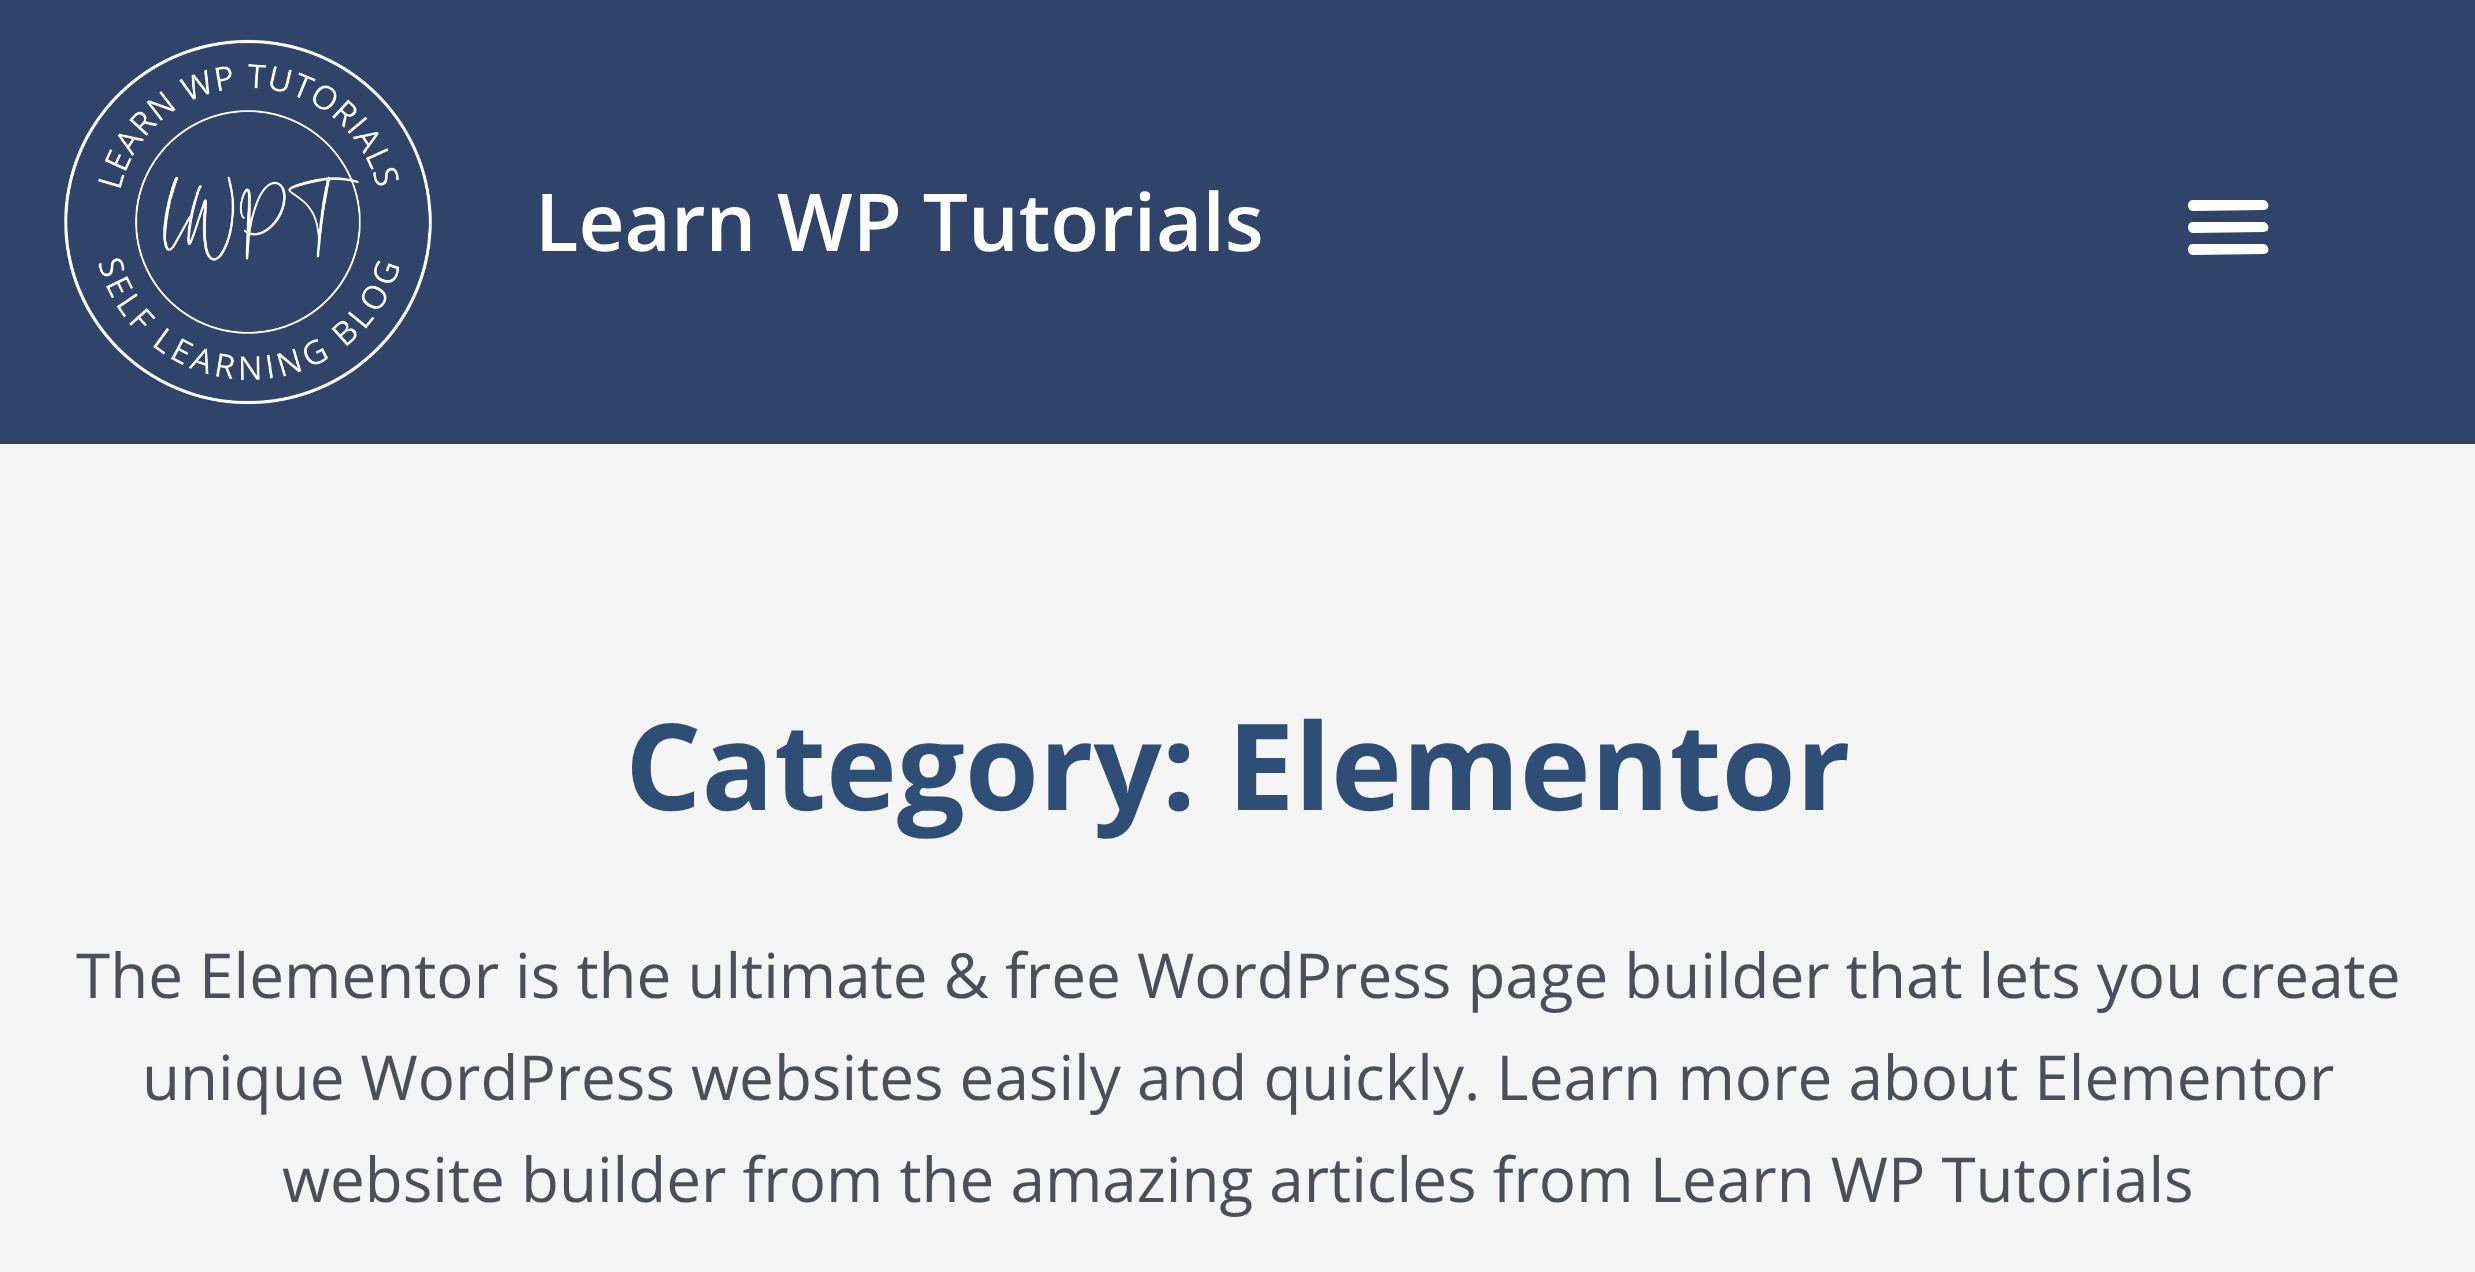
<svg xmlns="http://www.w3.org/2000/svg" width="2475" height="1272">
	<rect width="100%" height="100%" fill="#F5F5F5" />
	<rect x="0" y="0" width="2475" height="444" fill="#2F4468" />
	<image x="64" y="39" width="368" height="366" href="assets/img1.png" />
	<text x="535" y="251" font-family="Open Sans" font-size="80" font-weight="600" fill="#FFFFFF">Learn WP Tutorials</text>
	<path d="M2193 211L2264 210L2267 209C2270 206 2268 201 2264 200H2192C2186 201 2187 211 2193 211ZM2193 233L2264 232L2267 231C2270 228 2268 223 2264 222H2192C2186 223 2187 233 2193 233ZM2193 255L2264 254L2267 253C2270 250 2268 245 2264 244H2192C2186 245 2187 255 2193 255Z" fill="#FFFFFF" />
	<text x="625" y="810" font-family="Open Sans" font-size="120" font-weight="700" fill="#2F4E75">Category: Elementor</text>
	<g font-family="Open Sans" font-size="62" fill="#4B4F58">
		<text x="76" y="998">The Elementor is the ultimate &amp; free WordPress page builder that lets you create</text>
		<text x="142" y="1100">unique WordPress websites easily and quickly. Learn more about Elementor</text>
		<text x="282" y="1202">website builder from the amazing articles from Learn WP Tutorials</text>
	</g>
</svg>
